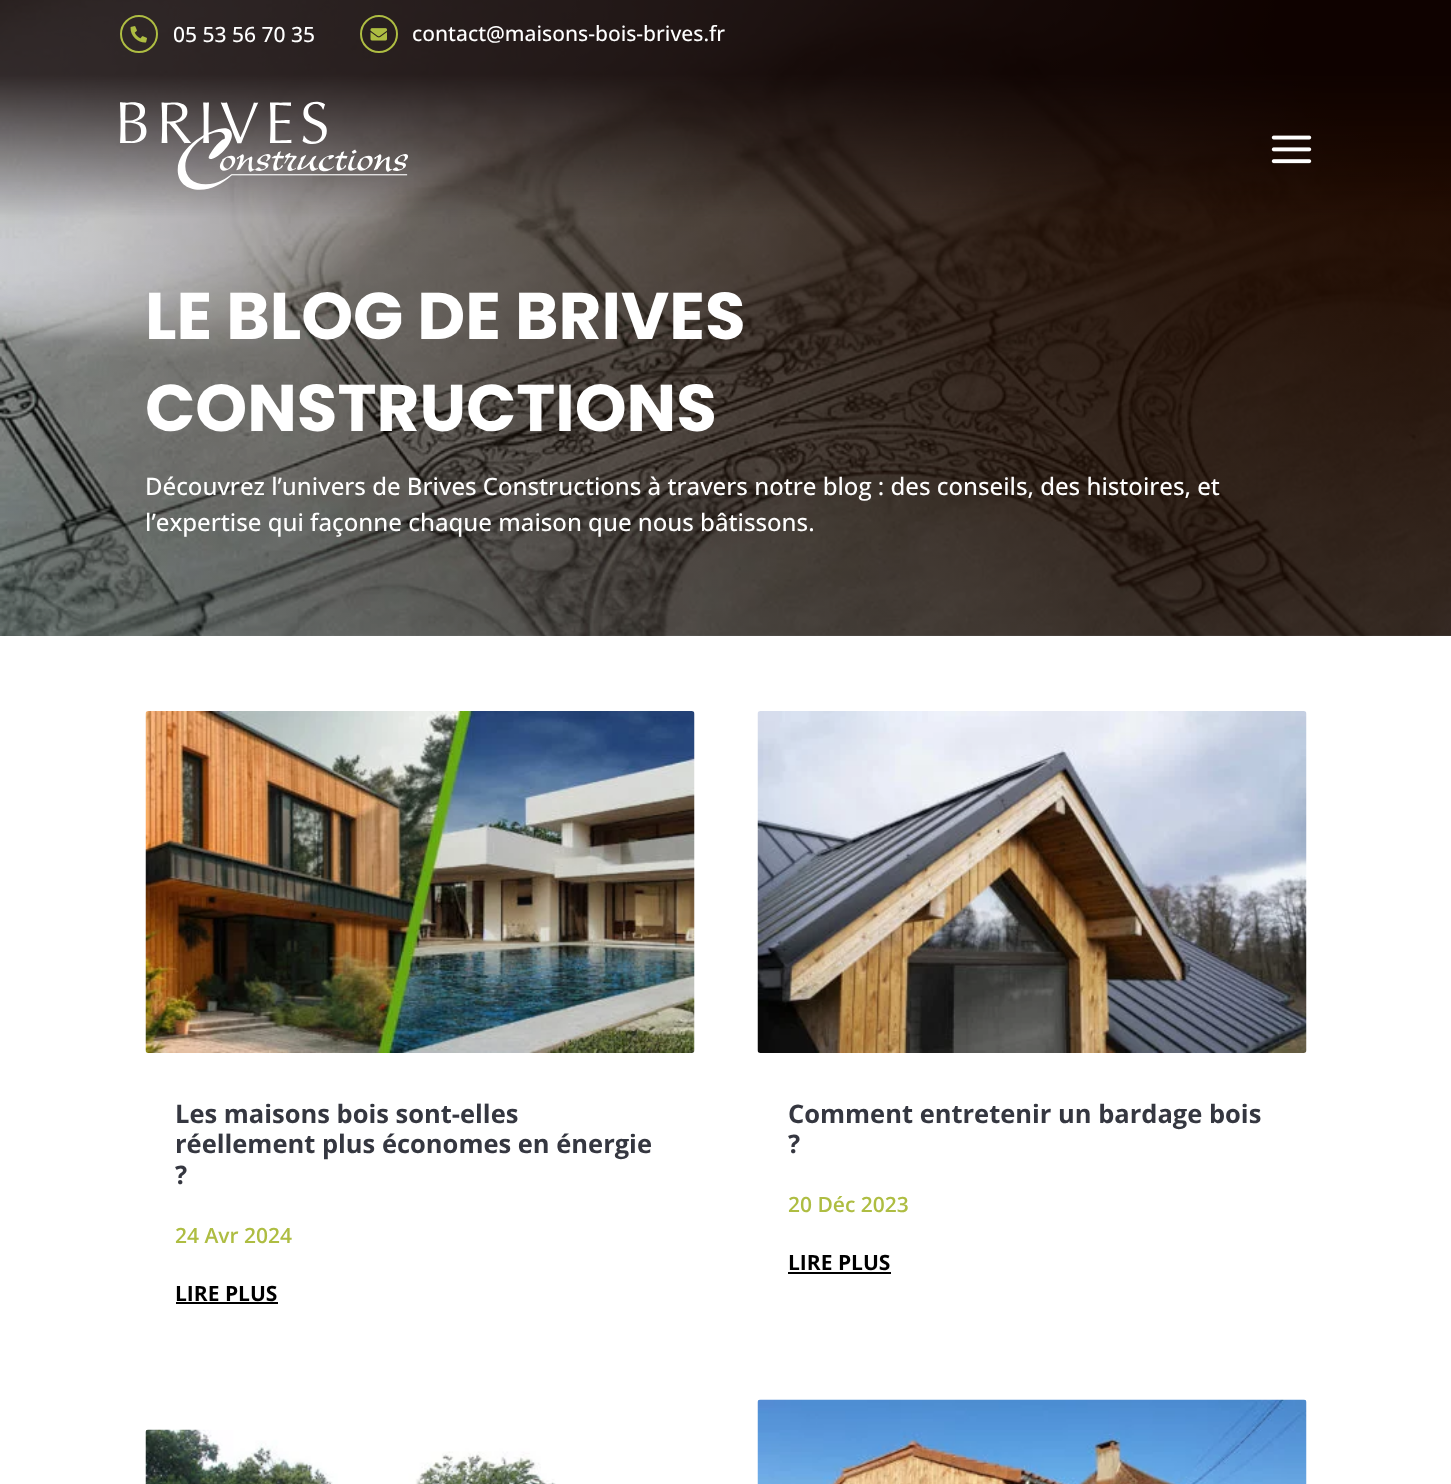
<svg xmlns="http://www.w3.org/2000/svg" width="1451" height="1484">
	<rect width="100%" height="100%" fill="#FFFFFF" />
	<image x="0" y="0" width="1451" height="636" href="assets/img5.png" />
	<rect x="0" y="0" width="1451" height="75" fill="#0A0000" fill-opacity="0.78" />
	<circle cx="139" cy="34" r="18" fill="none" stroke="#AEBD42" stroke-width="2" />
	<image x="130" y="26" width="17" height="17" href="assets/img1.png" />
	<text x="173" y="42" font-family="Open Sans" font-size="21" font-weight="500" fill="#FFFFFF">05 53 56 70 35</text>
	<circle cx="379" cy="34" r="18" fill="none" stroke="#AEBD42" stroke-width="2" />
	<image x="370" y="28" width="17" height="13" href="assets/img2.png" />
	<text x="412" y="41" font-family="Open Sans" font-size="21" font-weight="500" fill="#FFFFFF">contact@maisons-bois-brives.fr</text>
	<image x="120" y="101" width="288" height="89" href="assets/img3.png" />
	<image x="1271" y="135" width="41" height="29" href="assets/img4.png" />
	<g font-family="Poppins" font-size="66" font-weight="700" fill="#FFFFFF">
		<text x="145" y="339">LE BLOG DE BRIVES</text>
		<text x="145" y="431">CONSTRUCTIONS</text>
	</g>
	<g font-family="Open Sans" font-size="24" font-weight="500" fill="#FFFFFF">
		<text x="145" y="495">Découvrez l’univers de Brives Constructions à travers notre blog : des conseils, des histoires, et</text>
		<text x="145" y="531">l’expertise qui façonne chaque maison que nous bâtissons.</text>
	</g>
	<image x="145" y="711" width="550" height="342" href="assets/img6.png" />
	<g font-family="Open Sans" font-size="25.5" font-weight="700" fill="#353740">
		<text x="175" y="1123">Les maisons bois sont-elles</text>
		<text x="175" y="1153">réellement plus économes en énergie</text>
		<text x="175" y="1184">?</text>
	</g>
	<text x="175" y="1243" font-family="Open Sans" font-size="21" font-weight="600" fill="#AEBD42">24 Avr 2024</text>
	<text x="175" y="1301" font-family="Open Sans" font-size="21" font-weight="700" fill="#000000">LIRE PLUS</text>
	<rect x="176" y="1302" width="102" height="2" fill="#000000" />
	<image x="145" y="1429" width="411" height="55" href="assets/img7.png" />
	<image x="757" y="711" width="550" height="342" href="assets/img8.png" />
	<g font-family="Open Sans" font-size="25.5" font-weight="700" fill="#353740">
		<text x="788" y="1123">Comment entretenir un bardage bois</text>
		<text x="788" y="1153">?</text>
	</g>
	<text x="788" y="1212" font-family="Open Sans" font-size="21" font-weight="600" fill="#AEBD42">20 Déc 2023</text>
	<text x="788" y="1270" font-family="Open Sans" font-size="21" font-weight="700" fill="#000000">LIRE PLUS</text>
	<rect x="788" y="1272" width="103" height="2" fill="#000000" />
	<image x="757" y="1399" width="550" height="85" href="assets/img9.png" />
</svg>
